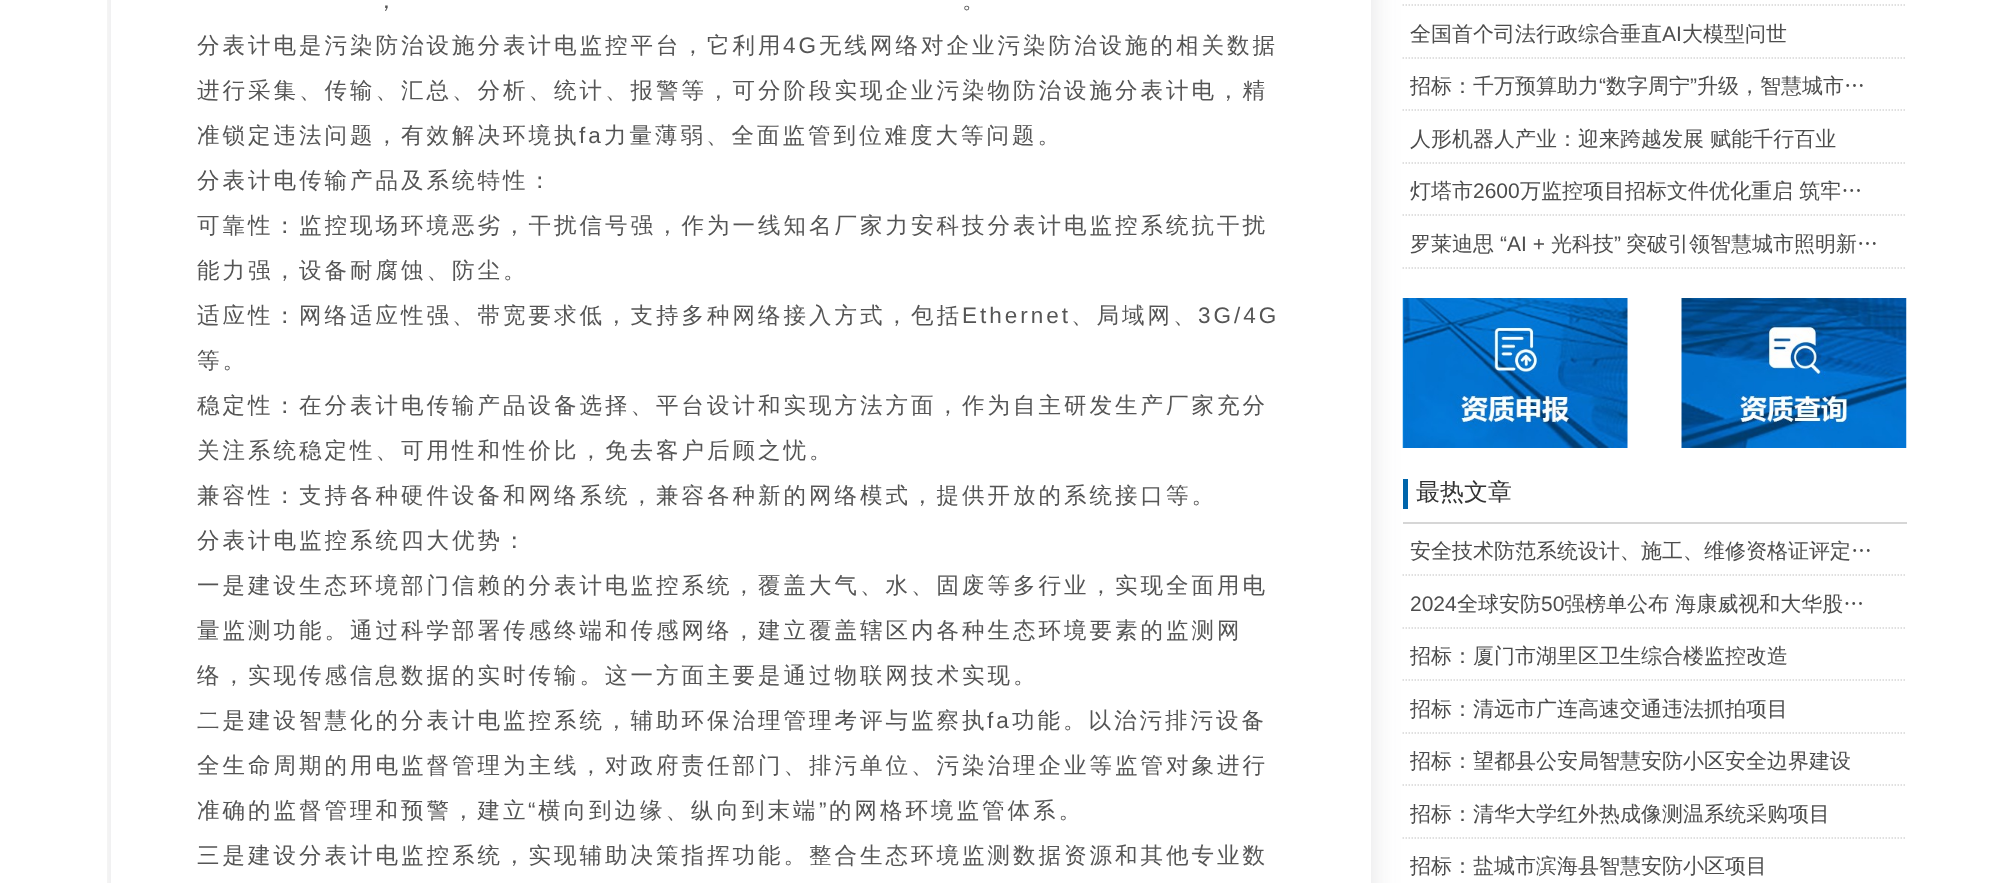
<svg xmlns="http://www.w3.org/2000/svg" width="2012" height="883">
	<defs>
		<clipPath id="clip1"><rect x="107" y="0" width="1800" height="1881" /></clipPath>
		<clipPath id="clip2"><path d="M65 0H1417V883H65ZM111-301H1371V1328H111Z" clip-rule="evenodd" /></clipPath>
	</defs>
	<rect width="100%" height="100%" fill="#FFFFFF" />
	<g clip-path="url(#clip1)">
		<g clip-path="url(#clip2)">
			<rect x="111" y="-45" width="1260" height="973" fill="#424344" fill-opacity="0.14" filter="blur(15px)" />
		</g>
	</g>
	<g font-family="WenQuanYi Zen Hei" font-size="22.5" font-weight="500" letter-spacing="3" fill="#555555">
		<text x="375" y="8">，</text>
		<text x="962" y="8">。</text>
		<text x="197" y="53">分表计电是污染防治设施分表计电监控平台，它利用</text>
	</g>
	<text x="783" y="53" font-family="Liberation Sans" font-size="22.5" letter-spacing="3" fill="#555555">4G</text>
	<g font-family="WenQuanYi Zen Hei" font-size="22.5" font-weight="500" letter-spacing="3" fill="#555555">
		<text x="819" y="53">无线网络对企业污染防治设施的相关数据</text>
		<text x="197" y="98">进行采集、传输、汇总、分析、统计、报警等，可分阶段实现企业污染物防治设施分表计电，精</text>
		<text x="197" y="143">准锁定违法问题，有效解决环境执</text>
	</g>
	<text x="579" y="143" font-family="Liberation Sans" font-size="22.5" letter-spacing="3" fill="#555555">fa</text>
	<g font-family="WenQuanYi Zen Hei" font-size="22.5" font-weight="500" letter-spacing="3" fill="#555555">
		<text x="604" y="143">力量薄弱、全面监管到位难度大等问题。</text>
		<text x="197" y="188">分表计电传输产品及系统特性：</text>
		<text x="197" y="233">可靠性：监控现场环境恶劣，干扰信号强，作为一线知名厂家力安科技分表计电监控系统抗干扰</text>
		<text x="197" y="278">能力强，设备耐腐蚀、防尘。</text>
		<text x="197" y="323">适应性：网络适应性强、带宽要求低，支持多种网络接入方式，包括</text>
	</g>
	<text x="962" y="323" font-family="Liberation Sans" font-size="22.5" letter-spacing="3" fill="#555555">Ethernet</text>
	<text x="1071" y="323" font-family="WenQuanYi Zen Hei" font-size="22.5" font-weight="500" letter-spacing="3" fill="#555555">、局域网、</text>
	<text x="1198" y="323" font-family="Liberation Sans" font-size="22.5" letter-spacing="3" fill="#555555">3G/4G</text>
	<g font-family="WenQuanYi Zen Hei" font-size="22.5" font-weight="500" letter-spacing="3" fill="#555555">
		<text x="197" y="368">等。</text>
		<text x="197" y="413">稳定性：在分表计电传输产品设备选择、平台设计和实现方法方面，作为自主研发生产厂家充分</text>
		<text x="197" y="458">关注系统稳定性、可用性和性价比，免去客户后顾之忧。</text>
		<text x="197" y="503">兼容性：支持各种硬件设备和网络系统，兼容各种新的网络模式，提供开放的系统接口等。</text>
		<text x="197" y="548">分表计电监控系统四大优势：</text>
		<text x="197" y="593">一是建设生态环境部门信赖的分表计电监控系统，覆盖大气、水、固废等多行业，实现全面用电</text>
		<text x="197" y="638">量监测功能。通过科学部署传感终端和传感网络，建立覆盖辖区内各种生态环境要素的监测网</text>
		<text x="197" y="683">络，实现传感信息数据的实时传输。这一方面主要是通过物联网技术实现。</text>
		<text x="197" y="728">二是建设智慧化的分表计电监控系统，辅助环保治理管理考评与监察执</text>
	</g>
	<text x="987" y="728" font-family="Liberation Sans" font-size="22.5" letter-spacing="3" fill="#555555">fa</text>
	<g font-family="WenQuanYi Zen Hei" font-size="22.5" font-weight="500" letter-spacing="3" fill="#555555">
		<text x="1012" y="728">功能。以治污排污设备</text>
		<text x="197" y="773">全生命周期的用电监督管理为主线，对政府责任部门、排污单位、污染治理企业等监管对象进行</text>
		<text x="197" y="818">准确的监督管理和预警，建立</text>
	</g>
	<text x="528" y="818" font-family="Liberation Sans" font-size="22.5" letter-spacing="3" fill="#555555">“</text>
	<text x="538" y="818" font-family="WenQuanYi Zen Hei" font-size="22.5" font-weight="500" letter-spacing="3" fill="#555555">横向到边缘、纵向到末端</text>
	<text x="819" y="818" font-family="Liberation Sans" font-size="22.5" letter-spacing="3" fill="#555555">”</text>
	<g font-family="WenQuanYi Zen Hei" font-size="22.5" font-weight="500" letter-spacing="3" fill="#555555">
		<text x="829" y="818">的网格环境监管体系。</text>
		<text x="197" y="863">三是建设分表计电监控系统，实现辅助决策指挥功能。整合生态环境监测数据资源和其他专业数</text>
	</g>
	<path d="M1402.5 5H1906.5" fill="none" stroke="#D6D6D6" stroke-width="1.5" stroke-dasharray="1.5 1.5" />
	<path d="M1402.5 58H1906.5" fill="none" stroke="#D6D6D6" stroke-width="1.5" stroke-dasharray="1.5 1.5" />
	<text x="1410" y="41" font-family="WenQuanYi Zen Hei" font-size="21" font-weight="500" fill="#4D4D4D">全国首个司法行政综合垂直</text>
	<text x="1662" y="41" font-family="Liberation Sans" font-size="21" fill="#4D4D4D">AI</text>
	<text x="1682" y="41" font-family="WenQuanYi Zen Hei" font-size="21" font-weight="500" fill="#4D4D4D">大模型问世</text>
	<path d="M1402.5 110H1906.5" fill="none" stroke="#D6D6D6" stroke-width="1.5" stroke-dasharray="1.5 1.5" />
	<text x="1410" y="93" font-family="WenQuanYi Zen Hei" font-size="21" font-weight="500" fill="#4D4D4D">招标：千万预算助力</text>
	<text x="1599" y="93" font-family="Liberation Sans" font-size="21" fill="#4D4D4D">“</text>
	<text x="1606" y="93" font-family="WenQuanYi Zen Hei" font-size="21" font-weight="500" fill="#4D4D4D">数字周宁</text>
	<text x="1690" y="93" font-family="Liberation Sans" font-size="21" fill="#4D4D4D">”</text>
	<text x="1697" y="93" font-family="WenQuanYi Zen Hei" font-size="21" font-weight="500" fill="#4D4D4D">升级，智慧城市…</text>
	<path d="M1402.5 163H1906.5" fill="none" stroke="#D6D6D6" stroke-width="1.5" stroke-dasharray="1.5 1.5" />
	<text x="1410" y="146" font-family="WenQuanYi Zen Hei" font-size="21" font-weight="500" fill="#4D4D4D">人形机器人产业：迎来跨越发展 赋能千行百业</text>
	<path d="M1402.5 215H1906.5" fill="none" stroke="#D6D6D6" stroke-width="1.5" stroke-dasharray="1.5 1.5" />
	<text x="1410" y="198" font-family="WenQuanYi Zen Hei" font-size="21" font-weight="500" fill="#4D4D4D">灯塔市</text>
	<text x="1473" y="198" font-family="Liberation Sans" font-size="21" fill="#4D4D4D">2600</text>
	<text x="1520" y="198" font-family="WenQuanYi Zen Hei" font-size="21" font-weight="500" fill="#4D4D4D">万监控项目招标文件优化重启 筑牢…</text>
	<path d="M1402.5 268H1906.5" fill="none" stroke="#D6D6D6" stroke-width="1.5" stroke-dasharray="1.5 1.5" />
	<text x="1410" y="251" font-family="WenQuanYi Zen Hei" font-size="21" font-weight="500" fill="#4D4D4D">罗莱迪思</text>
	<text x="1500" y="251" font-family="Liberation Sans" font-size="21" fill="#4D4D4D">“AI +</text>
	<text x="1551" y="251" font-family="WenQuanYi Zen Hei" font-size="21" font-weight="500" fill="#4D4D4D">光科技</text>
	<text x="1614" y="251" font-family="Liberation Sans" font-size="21" fill="#4D4D4D">”</text>
	<text x="1626" y="251" font-family="WenQuanYi Zen Hei" font-size="21" font-weight="500" fill="#4D4D4D">突破引领智慧城市照明新…</text>
	<image x="1402" y="298" width="226" height="150" href="assets/img1.png" />
	<image x="1681" y="298" width="226" height="150" href="assets/img2.png" />
	<rect x="1403" y="522" width="504" height="2" fill="#D6D6D6" />
	<rect x="1403" y="479" width="5" height="30" fill="#0065AB" />
	<text x="1416" y="500" font-family="WenQuanYi Zen Hei" font-size="24" font-weight="500" fill="#333333">最热文章</text>
	<path d="M1402.5 575H1906.5" fill="none" stroke="#D6D6D6" stroke-width="1.5" stroke-dasharray="1.5 1.5" />
	<text x="1410" y="558" font-family="WenQuanYi Zen Hei" font-size="21" font-weight="500" fill="#4D4D4D">安全技术防范系统设计、施工、维修资格证评定…</text>
	<path d="M1402.5 628H1906.5" fill="none" stroke="#D6D6D6" stroke-width="1.5" stroke-dasharray="1.5 1.5" />
	<text x="1410" y="611" font-family="Liberation Sans" font-size="21" fill="#4D4D4D">2024</text>
	<text x="1457" y="611" font-family="WenQuanYi Zen Hei" font-size="21" font-weight="500" fill="#4D4D4D">全球安防</text>
	<text x="1541" y="611" font-family="Liberation Sans" font-size="21" fill="#4D4D4D">50</text>
	<text x="1564" y="611" font-family="WenQuanYi Zen Hei" font-size="21" font-weight="500" fill="#4D4D4D">强榜单公布 海康威视和大华股…</text>
	<path d="M1402.5 680H1906.5" fill="none" stroke="#D6D6D6" stroke-width="1.5" stroke-dasharray="1.5 1.5" />
	<text x="1410" y="663" font-family="WenQuanYi Zen Hei" font-size="21" font-weight="500" fill="#4D4D4D">招标：厦门市湖里区卫生综合楼监控改造</text>
	<path d="M1402.5 733H1906.5" fill="none" stroke="#D6D6D6" stroke-width="1.5" stroke-dasharray="1.5 1.5" />
	<text x="1410" y="716" font-family="WenQuanYi Zen Hei" font-size="21" font-weight="500" fill="#4D4D4D">招标：清远市广连高速交通违法抓拍项目</text>
	<path d="M1402.5 785H1906.5" fill="none" stroke="#D6D6D6" stroke-width="1.5" stroke-dasharray="1.5 1.5" />
	<text x="1410" y="768" font-family="WenQuanYi Zen Hei" font-size="21" font-weight="500" fill="#4D4D4D">招标：望都县公安局智慧安防小区安全边界建设</text>
	<path d="M1402.5 838H1906.5" fill="none" stroke="#D6D6D6" stroke-width="1.5" stroke-dasharray="1.5 1.5" />
	<g font-family="WenQuanYi Zen Hei" font-size="21" font-weight="500" fill="#4D4D4D">
		<text x="1410" y="821">招标：清华大学红外热成像测温系统采购项目</text>
		<text x="1410" y="873">招标：盐城市滨海县智慧安防小区项目</text>
	</g>
</svg>
